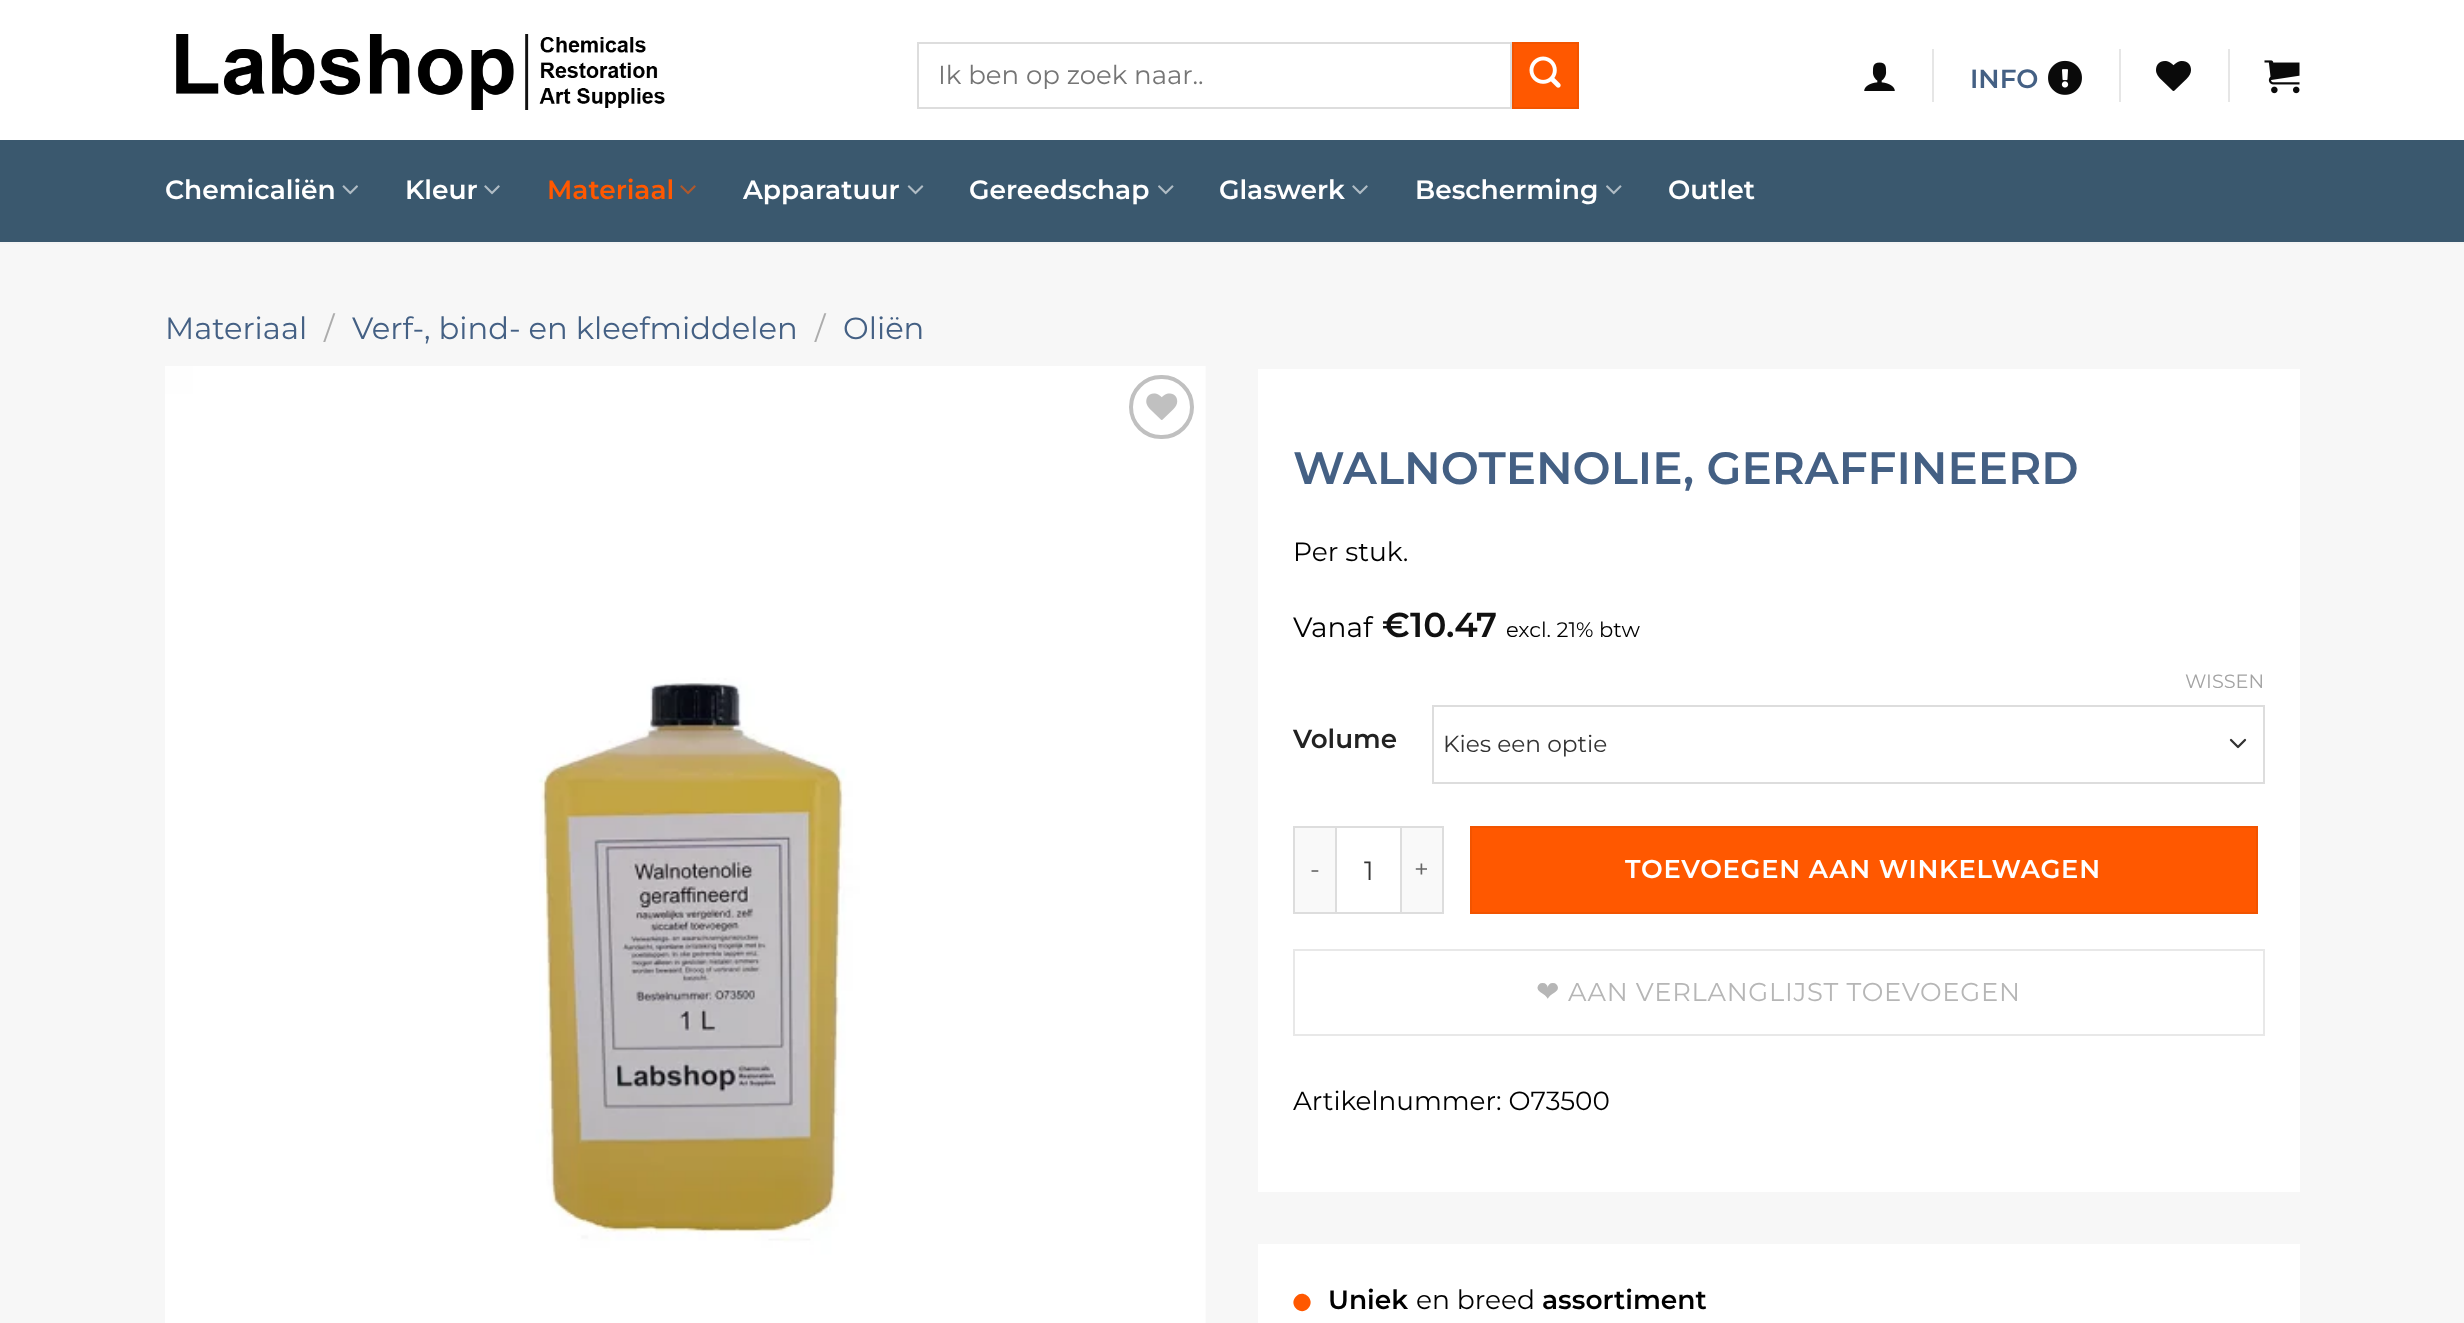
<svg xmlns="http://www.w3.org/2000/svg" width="2464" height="1323">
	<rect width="100%" height="100%" fill="#F7F7F7" />
	<rect x="0" y="0" width="2464" height="140" fill="#FFFFFF" />
	<image x="176" y="34" width="489" height="76" href="assets/img1.png" />
	<rect x="918" y="43" width="593" height="65" fill="none" stroke="#DDDDDD" stroke-width="2" />
	<text x="938" y="84" font-family="Montserrat" font-size="26" fill="#757575">Ik ben op zoek naar..</text>
	<rect x="1513" y="43" width="65" height="65" fill="#FF5800" stroke="#F25400" stroke-width="2" />
	<image x="1529" y="56" width="32" height="32" href="assets/img2.png" />
	<image x="1864" y="62" width="31" height="29" href="assets/img3.png" />
	<rect x="1932" y="49" width="2" height="53" fill="#E6E6E6" />
	<text x="1970" y="88" font-family="Montserrat" font-size="26.25" font-weight="600" fill="#446084">INFO</text>
	<image x="2048" y="60" width="34" height="35" href="assets/img4.png" />
	<rect x="2119" y="49" width="2" height="53" fill="#E6E6E6" />
	<image x="2156" y="61" width="35" height="30" href="assets/img5.png" />
	<rect x="2228" y="49" width="2" height="53" fill="#E6E6E6" />
	<image x="2264" y="60" width="36" height="34" href="assets/img6.png" />
	<rect x="0" y="140" width="2464" height="102" fill="#3A586E" />
	<rect x="0" y="242" width="2464" height="2" fill="#F4F4F4" />
	<text x="165" y="199" font-family="Montserrat" font-size="26.5" font-weight="600" fill="#FFFFFF">Chemicaliën</text>
	<image x="342" y="185" width="16" height="10" href="assets/img7.png" />
	<text x="405" y="199" font-family="Montserrat" font-size="26.5" font-weight="600" fill="#FFFFFF">Kleur</text>
	<image x="484" y="185" width="16" height="10" href="assets/img8.png" />
	<text x="547" y="199" font-family="Montserrat" font-size="26.5" font-weight="600" fill="#FF5800">Materiaal</text>
	<image x="680" y="185" width="16" height="10" href="assets/img9.png" />
	<text x="743" y="199" font-family="Montserrat" font-size="26.5" font-weight="600" fill="#FFFFFF">Apparatuur</text>
	<image x="907" y="185" width="17" height="10" href="assets/img10.png" />
	<text x="969" y="199" font-family="Montserrat" font-size="26.5" font-weight="600" fill="#FFFFFF">Gereedschap</text>
	<image x="1158" y="185" width="16" height="10" href="assets/img11.png" />
	<text x="1219" y="199" font-family="Montserrat" font-size="26.5" font-weight="600" fill="#FFFFFF">Glaswerk</text>
	<image x="1352" y="185" width="16" height="10" href="assets/img8.png" />
	<text x="1415" y="199" font-family="Montserrat" font-size="26.5" font-weight="600" fill="#FFFFFF">Bescherming</text>
	<image x="1606" y="185" width="16" height="10" href="assets/img11.png" />
	<text x="1668" y="199" font-family="Montserrat" font-size="26.5" font-weight="600" fill="#FFFFFF">Outlet</text>
	<text x="165" y="339" font-family="Montserrat" font-size="30.6" fill="#446084">Materiaal</text>
	<text x="324" y="339" font-family="Montserrat" font-size="30.6" fill="#ACACAC">/</text>
	<text x="352" y="339" font-family="Montserrat" font-size="30.6" fill="#446084">Verf-, bind- en kleefmiddelen</text>
	<text x="815" y="339" font-family="Montserrat" font-size="30.6" fill="#ACACAC">/</text>
	<text x="843" y="339" font-family="Montserrat" font-size="30.6" fill="#446084">Oliën</text>
	<image x="165" y="366" width="1041" height="957" href="assets/img12.png" />
	<rect x="1131" y="377" width="61" height="60" rx="30" fill="none" stroke="#C0C0C0" stroke-width="4" />
	<image x="1146" y="393" width="32" height="27" href="assets/img13.png" />
	<rect x="1258" y="369" width="1042" height="823" fill="#FFFFFF" />
	<text x="1293" y="484" font-family="Montserrat" font-size="45.25" font-weight="600" fill="#446084">WALNOTENOLIE, GERAFFINEERD</text>
	<text x="1293" y="561" font-family="Montserrat" font-size="26.5" fill="#000000">Per stuk.</text>
	<text x="1293" y="637" font-family="Montserrat" font-size="28" fill="#000000">Vanaf</text>
	<g font-family="Montserrat" font-size="34.5" font-weight="600" fill="#111111">
		<text x="1382" y="637">€</text>
		<text x="1410" y="637">10.47</text>
	</g>
	<text x="1506" y="637" font-family="Montserrat" font-size="21" fill="#000000">excl. 21% btw</text>
	<text x="1293" y="748" font-family="Montserrat" font-size="26.25" font-weight="600" fill="#222222">Volume</text>
	<text x="2185" y="688" font-family="Montserrat" font-size="19.25" fill="#A3A3A3">WISSEN</text>
	<path d="M2231 740L2238 747L2245 740" fill="none" stroke="#333333" stroke-width="2.3" stroke-linecap="round" stroke-linejoin="round" />
	<rect x="1433" y="706" width="831" height="77" fill="none" stroke="#DDDDDD" stroke-width="2" />
	<text x="1443" y="752" font-family="Montserrat" font-size="23.25" fill="#333333">Kies een optie</text>
	<rect x="1295" y="828" width="40" height="84" fill="#F9F9F9" />
	<rect x="1293" y="826" width="42" height="2" fill="#DDDDDD" />
	<rect x="1293" y="912" width="42" height="2" fill="#DDDDDD" />
	<rect x="1293" y="826" width="2" height="88" fill="#DDDDDD" />
	<text x="1310" y="878" font-family="Montserrat" font-size="25.75" letter-spacing="0.75" fill="#666666">-</text>
	<rect x="1336" y="827" width="65" height="86" fill="none" stroke="#DDDDDD" stroke-width="2" />
	<text x="1364" y="880" font-family="Montserrat" font-size="26.5" fill="#333333">1</text>
	<rect x="1402" y="828" width="40" height="84" fill="#F9F9F9" />
	<rect x="1402" y="826" width="42" height="2" fill="#DDDDDD" />
	<rect x="1442" y="826" width="2" height="88" fill="#DDDDDD" />
	<rect x="1402" y="912" width="42" height="2" fill="#DDDDDD" />
	<text x="1414" y="878" font-family="Montserrat" font-size="25.75" letter-spacing="0.75" fill="#666666">+</text>
	<rect x="1471" y="827" width="786" height="86" fill="#FF5800" stroke="#F25400" stroke-width="2" />
	<text x="1625" y="878" font-family="Montserrat" font-size="25.75" font-weight="600" letter-spacing="0.75" fill="#FFFFFF">TOEVOEGEN AAN WINKELWAGEN</text>
	<rect x="1294" y="950" width="970" height="85" fill="none" stroke="#E8E8E8" stroke-width="2" />
	<text x="1536" y="1001" font-family="DejaVu Sans" font-size="28" letter-spacing="0.75" fill="#B6B6B6">❤</text>
	<text x="1568" y="1001" font-family="Montserrat" font-size="25.75" letter-spacing="0.75" fill="#B6B6B6">AAN VERLANGLIJST TOEVOEGEN</text>
	<text x="1293" y="1110" font-family="Montserrat" font-size="26.25" fill="#000000">Artikelnummer: O73500</text>
	<rect x="1258" y="1244" width="1042" height="79" fill="#FFFFFF" />
	<path d="M1296 1296.5C1304 1288.5 1316 1300.5 1308 1308.5C1300 1316.5 1288 1304.5 1296 1296.5Z" fill="#FF5800" />
	<text x="1328" y="1309" font-family="Montserrat" font-size="26.5" font-weight="600" fill="#000000">Uniek</text>
	<text x="1416" y="1309" font-family="Montserrat" font-size="26.5" fill="#000000">en breed</text>
	<text x="1542" y="1309" font-family="Montserrat" font-size="26.5" font-weight="600" fill="#000000">assortiment</text>
</svg>
